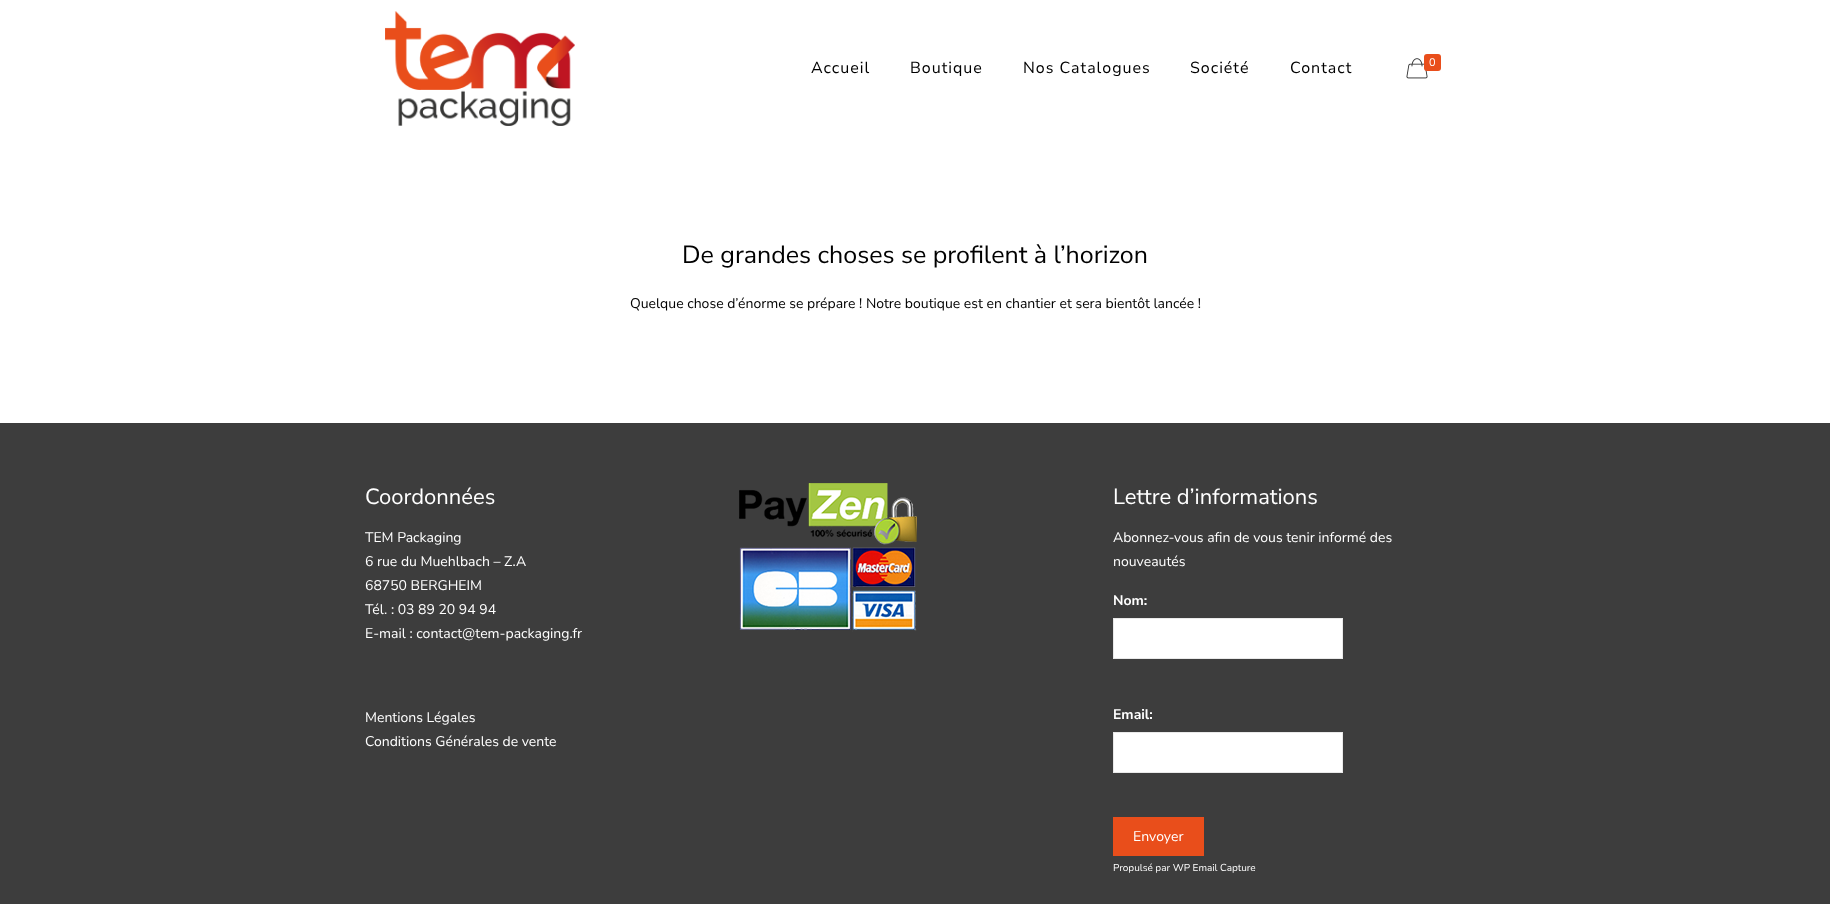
<svg xmlns="http://www.w3.org/2000/svg" width="1830" height="904">
	<rect width="100%" height="100%" fill="#FFFFFF" />
	<image x="385" y="11" width="190" height="115" href="assets/img1.png" />
	<g font-family="Nunito Sans" font-size="16" letter-spacing="1" fill="#000000">
		<text x="811" y="73">Accueil</text>
		<text x="910" y="73">Boutique</text>
		<text x="1023" y="73">Nos Catalogues</text>
		<text x="1190" y="73">Société</text>
		<text x="1290" y="73">Contact</text>
	</g>
	<image x="1406" y="58" width="22" height="21" href="assets/img2.png" />
	<rect x="1424" y="54" width="17" height="17" rx="3" fill="#E94E1B" />
	<text x="1429" y="66" font-family="Nunito Sans" font-size="11" fill="#FFFFFF">0</text>
	<text x="682" y="263" font-family="Nunito Sans" font-size="25" fill="#000000">De grandes choses se profilent à l’horizon</text>
	<text x="630" y="308" font-family="Nunito Sans" font-size="14" fill="#000000">Quelque chose d’énorme se prépare ! Notre boutique est en chantier et sera bientôt lancée !</text>
	<rect x="0" y="423" width="1830" height="481" fill="#3D3D3D" />
	<text x="365" y="504" font-family="Nunito Sans" font-size="22" fill="#FFFFFF">Coordonnées</text>
	<g font-family="Nunito Sans" font-size="14" fill="#FFFFFF">
		<text x="365" y="542">TEM Packaging</text>
		<text x="365" y="566">6 rue du Muehlbach – Z.A</text>
		<text x="365" y="590">68750 BERGHEIM</text>
		<text x="365" y="614">Tél. : 03 89 20 94 94</text>
		<text x="365" y="638">E-mail : contact@tem-packaging.fr</text>
		<text x="365" y="722">Mentions Légales</text>
		<text x="365" y="746">Conditions Générales de vente</text>
	</g>
	<image x="739" y="483" width="178" height="149" href="assets/img3.png" />
	<text x="1113" y="504" font-family="Nunito Sans" font-size="22" fill="#FFFFFF">Lettre d’informations</text>
	<g font-family="Nunito Sans" font-size="14" fill="#FFFFFF">
		<text x="1113" y="542">Abonnez-vous afin de vous tenir informé des</text>
		<text x="1113" y="566">nouveautés</text>
	</g>
	<text x="1113" y="605" font-family="Nunito Sans" font-size="14" font-weight="700" fill="#FFFFFF">Nom:</text>
	<rect x="1113.5" y="618.5" width="229" height="40" fill="#FFFFFF" stroke="#E9E9E9" />
	<text x="1113" y="719" font-family="Nunito Sans" font-size="14" font-weight="700" fill="#FFFFFF">Email:</text>
	<rect x="1113.5" y="732.5" width="229" height="40" fill="#FFFFFF" stroke="#E9E9E9" />
	<rect x="1113" y="817" width="91" height="39" fill="#E94E1B" />
	<text x="1133" y="841" font-family="Nunito Sans" font-size="14" fill="#FFFFFF">Envoyer</text>
	<text x="1113" y="871" font-family="Nunito Sans" font-size="10" fill="#FFFFFF">Propulsé par WP Email Capture</text>
</svg>
